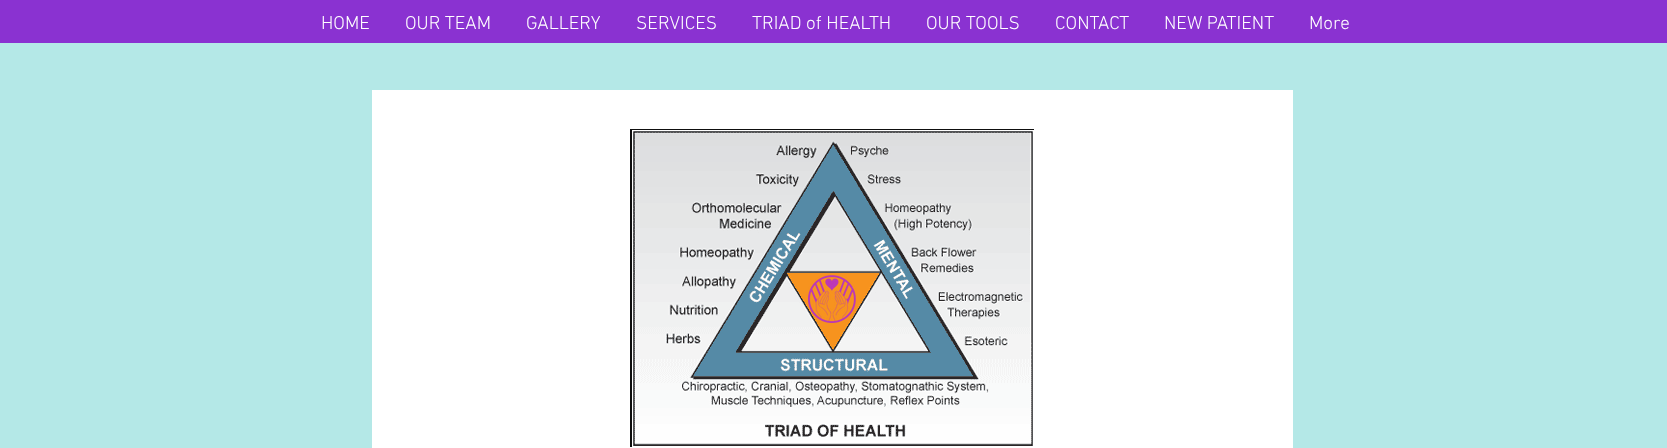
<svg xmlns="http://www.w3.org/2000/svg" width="1667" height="448">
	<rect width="100%" height="100%" fill="#B4E8E7" />
	<rect x="0" y="0" width="1667" height="43" fill="#8A32D1" />
	<g font-family="'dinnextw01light'" font-size="19" font-weight="300" fill="#FFFFFF">
		<text x="321" y="29">HOME</text>
		<text x="405" y="29">OUR TEAM</text>
		<text x="526" y="29">GALLERY</text>
		<text x="636" y="29">SERVICES</text>
		<text x="752" y="29">TRIAD of HEALTH</text>
		<text x="926" y="29">OUR TOOLS</text>
		<text x="1055" y="29">CONTACT</text>
		<text x="1164" y="29">NEW PATIENT</text>
		<text x="1309" y="29">More</text>
	</g>
	<rect x="372" y="90" width="921" height="358" fill="#FFFFFF" />
	<image x="630" y="129" width="404" height="318" href="assets/img1.png" />
	<image x="808" y="275" width="48" height="48" href="assets/img2.png" />
</svg>
